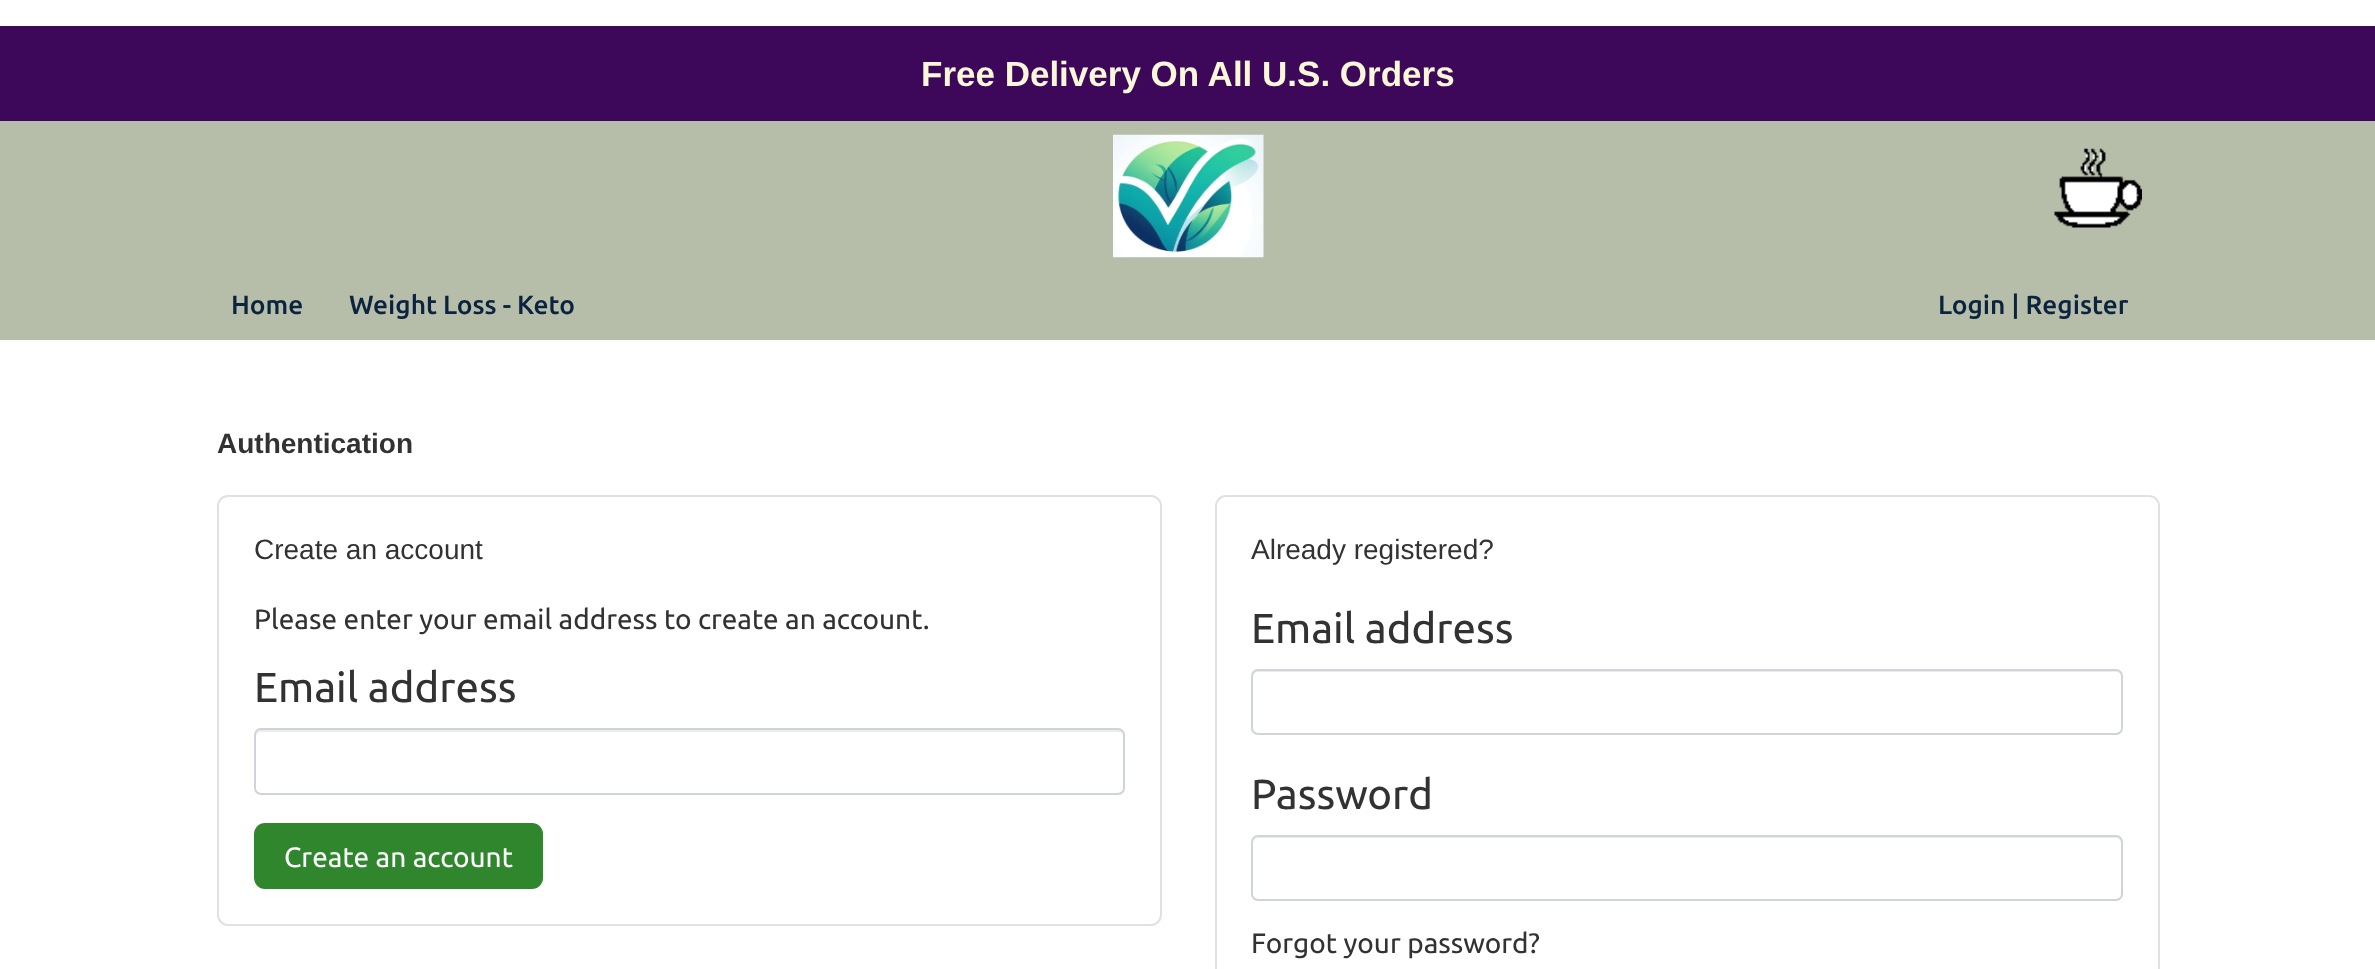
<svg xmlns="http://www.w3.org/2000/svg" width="2375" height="969">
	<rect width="100%" height="100%" fill="#FFFFFF" />
	<rect x="0" y="26" width="2375" height="95" fill="#3D0859" />
	<text x="921" y="86" font-family="Liberation Sans" font-size="35" font-weight="700" fill="#FAF8D9">Free Delivery On All U.S. Orders</text>
	<rect x="0" y="121" width="2375" height="219" fill="#B6BEAA" />
	<image x="1113" y="134" width="151" height="124" href="assets/img1.png" />
	<image x="2054" y="148" width="88" height="80" href="assets/img2.png" />
	<g font-family="Ubuntu" font-size="26.25" font-weight="500" fill="#0C2340">
		<text x="231" y="314">Home</text>
		<text x="349" y="314">Weight Loss - Keto</text>
		<text x="1938" y="314">Login | Register</text>
	</g>
	<text x="217" y="453" font-family="Liberation Sans" font-size="28" font-weight="700" fill="#323232">Authentication</text>
	<rect x="218" y="496" width="943" height="429" rx="10" fill="none" stroke="#E1E1E1" stroke-width="2" />
	<text x="254" y="559" font-family="Liberation Sans" font-size="28" fill="#323232">Create an account</text>
	<text x="254" y="629" font-family="Ubuntu" font-size="28" fill="#323232">Please enter your email address to create an account.</text>
	<text x="254" y="702" font-family="Ubuntu" font-size="42" fill="#323232">Email address</text>
	<path d="M261 732H1118C1121 732 1124 734 1124 737V735C1124 732 1122 730 1119 730H261C258 730 256 732 256 735V737C256 734 258 732 261 732Z" fill="#ECECEC" />
	<rect x="255" y="729" width="869" height="65" rx="6" fill="none" stroke="#CED4DA" stroke-width="2" />
	<rect x="254" y="823" width="289" height="66" rx="11" fill="#2F862D" />
	<text x="284" y="867" font-family="Ubuntu" font-size="28" fill="#FFFFFF">Create an account</text>
	<rect x="1216" y="496" width="943" height="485" rx="10" fill="none" stroke="#E1E1E1" stroke-width="2" />
	<text x="1251" y="559" font-family="Liberation Sans" font-size="28" fill="#323232">Already registered?</text>
	<text x="1251" y="643" font-family="Ubuntu" font-size="42" fill="#323232">Email address</text>
	<path d="M1258 672H2116C2119 672 2121 674 2121 677V675C2121 672 2119 670 2116 670H1258C1255 670 1253 672 1253 675V677C1253 674 1255 672 1258 672Z" fill="#ECECEC" />
	<rect x="1252" y="670" width="870" height="64" rx="6" fill="none" stroke="#CED4DA" stroke-width="2" />
	<text x="1251" y="809" font-family="Ubuntu" font-size="42" fill="#323232">Password</text>
	<path d="M1258 838H2116C2119 838 2121 841 2121 844V842C2121 839 2119 837 2116 837H1258C1255 837 1253 839 1253 842V844C1253 841 1255 838 1258 838Z" fill="#ECECEC" />
	<rect x="1252" y="836" width="870" height="64" rx="6" fill="none" stroke="#CED4DA" stroke-width="2" />
	<text x="1251" y="953" font-family="Ubuntu" font-size="28" fill="#323232">Forgot your password?</text>
</svg>
